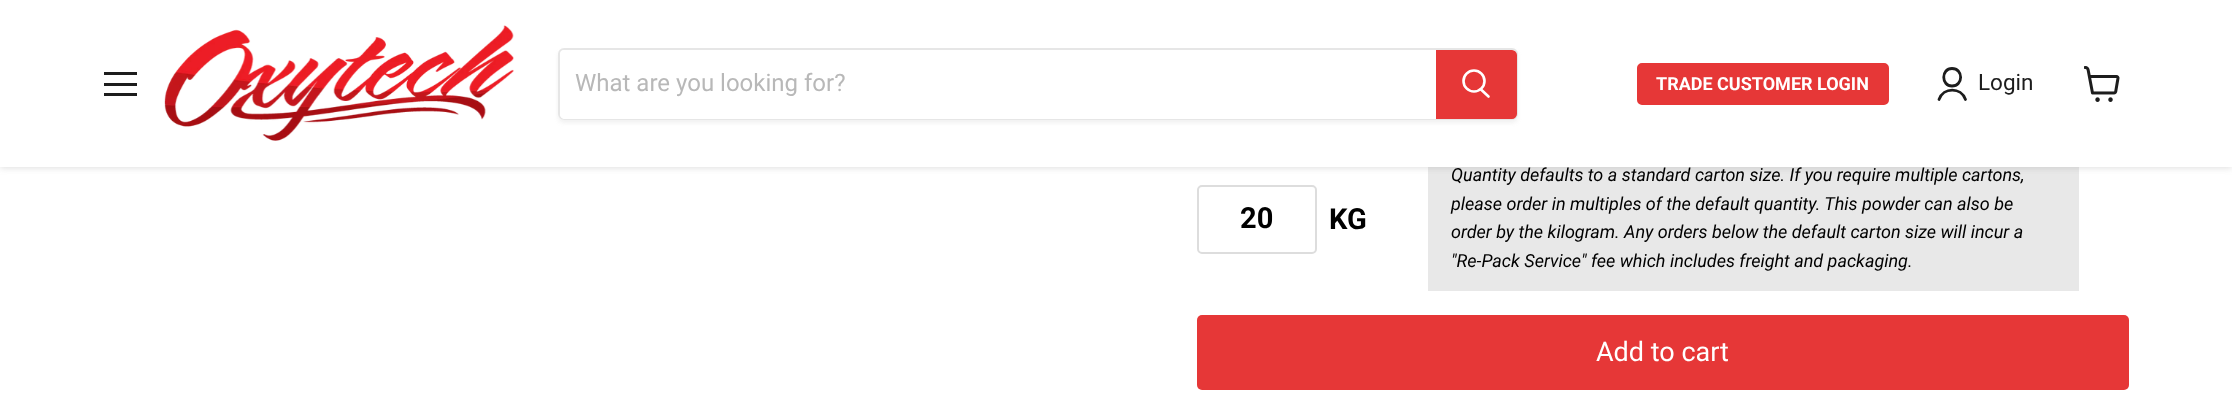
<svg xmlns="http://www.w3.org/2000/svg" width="2232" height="395">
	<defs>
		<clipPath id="clip1"><path d="M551 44H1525V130H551ZM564 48H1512C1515.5 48 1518 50.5 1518 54V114C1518 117.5 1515.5 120 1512 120H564C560.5 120 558 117.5 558 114V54C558 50.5 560.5 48 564 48Z" clip-rule="evenodd" /></clipPath>
	</defs>
	<rect width="100%" height="100%" fill="#FFFFFF" />
	<rect x="1428" y="167" width="651" height="124" fill="#E8E8E8" />
	<rect x="0" y="2" width="2232" height="166" fill="#808080" fill-opacity="0.25" filter="blur(3px)" />
	<rect x="0" y="0" width="2232" height="167" fill="#FFFFFF" />
	<rect x="104" y="72" width="33" height="3" fill="#1D1D1D" />
	<rect x="104" y="83" width="33" height="3" fill="#1D1D1D" />
	<rect x="104" y="93" width="33" height="3" fill="#1D1D1D" />
	<image x="164" y="25" width="350" height="116" href="assets/img1.png" />
	<g clip-path="url(#clip1)">
		<rect x="558" y="51" width="960" height="72" rx="6" fill="#808080" fill-opacity="0.11" filter="blur(2px)" />
	</g>
	<rect x="559" y="49" width="958" height="70" rx="5" fill="none" stroke="#808080" stroke-opacity="0.2" stroke-width="2" />
	<path d="M565 50H1436V119H565C562 119 560 117 560 114V55C560 52 562 50 565 50Z" fill="#FFFFFF" />
	<text x="575" y="91" font-family="Roboto" font-size="24" fill="#B8B8B8">What are you looking for?</text>
	<path d="M1437 51H1512C1514 51 1516 53 1516 55V114C1516 116 1514 118 1512 118H1437Z" fill="#E63737" stroke="#E63737" stroke-width="2" />
	<path d="M1488.5 96.5L1481 89.5" fill="none" stroke="#FFFFFF" stroke-width="2.6" stroke-linecap="round" />
	<circle cx="1474" cy="81" r="10.5" fill="none" stroke="#FFFFFF" stroke-width="2.6" />
	<rect x="1638" y="64" width="250" height="40" rx="4" fill="#E63737" stroke="#E63737" stroke-width="2" />
	<text x="1656" y="90" font-family="Roboto" font-size="18" font-weight="700" fill="#FFFFFF">TRADE CUSTOMER LOGIN</text>
	<path d="M1952 86C1963.5 86 1963.5 68.5 1952 68.5C1941 68.5 1941 86 1952 86ZM1965.5 99.5C1961 87 1943.5 87 1939 99.5" fill="none" stroke="#1D1D1D" stroke-width="2.8" stroke-linecap="round" stroke-linejoin="round" />
	<text x="1978" y="90" font-family="Roboto" font-size="22.5" fill="#1D1D1D">Login</text>
	<image x="2084" y="66" width="36" height="36" href="assets/img2.png" />
	<rect x="1198" y="186" width="118" height="67" rx="4" fill="none" stroke="#DDDDDD" stroke-width="2" />
	<g font-family="Roboto" font-size="29" font-weight="700" fill="#000000">
		<text x="1240" y="228">20</text>
		<text x="1329" y="229">KG</text>
	</g>
	<g font-family="Roboto" font-size="18" font-style="italic" fill="#000000">
		<text x="1451" y="181">Quantity defaults to a standard carton size. If you require multiple cartons,</text>
		<text x="1451" y="210">please order in multiples of the default quantity. This powder can also be</text>
		<text x="1451" y="238">order by the kilogram. Any orders below the default carton size will incur a</text>
		<text x="1451" y="267">"Re-Pack Service" fee which includes freight and packaging.</text>
	</g>
	<rect x="1197" y="315" width="932" height="75" rx="5" fill="#E63737" />
	<text x="1596" y="361" font-family="Roboto" font-size="27" fill="#FFFFFF">Add to cart</text>
</svg>
